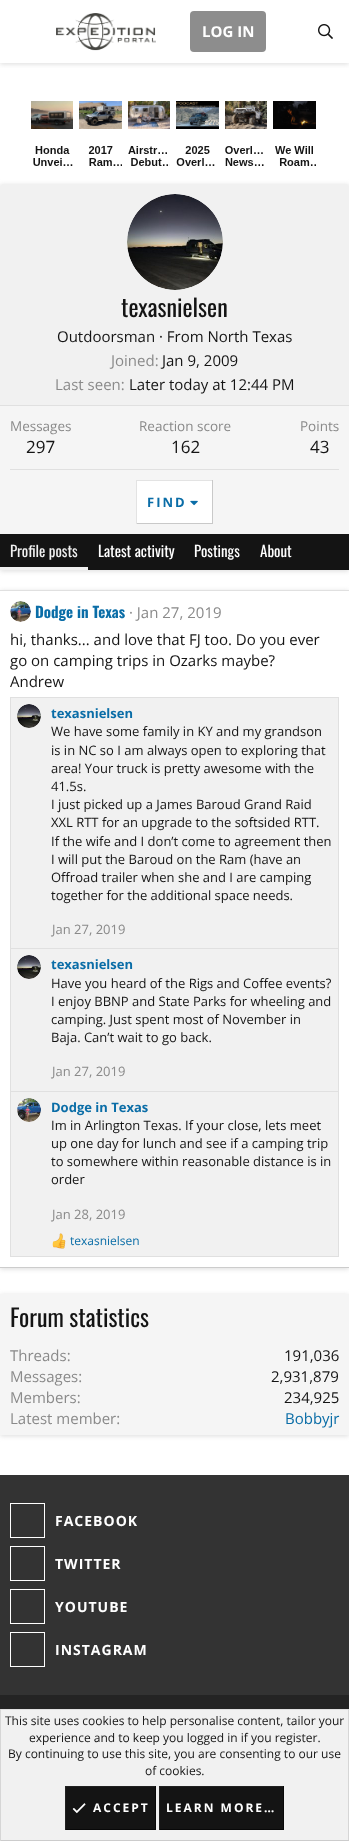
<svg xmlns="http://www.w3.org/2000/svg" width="349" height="1841">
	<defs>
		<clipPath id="clip1"><rect x="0" y="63" width="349" height="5" /></clipPath>
	</defs>
	<rect width="100%" height="100%" fill="#FFFFFF" />
	<g clip-path="url(#clip1)">
		<rect x="0" y="1" width="349" height="63" fill="#B9B9B9" fill-opacity="0.5" filter="blur(2.5px)" />
	</g>
	<image x="56" y="13" width="100" height="38" href="assets/img1.png" />
	<rect x="190" y="11" width="76" height="41" rx="4" fill="#8D8D8D" />
	<text x="202" y="37" font-family="Open Sans" font-size="15" font-weight="700" fill="#FFFFFF">LOG IN</text>
	<image x="318" y="24" width="15" height="15" href="assets/img2.png" />
	<image x="31" y="101" width="285" height="65" href="assets/img3.png" />
	<rect x="0" y="185" width="349" height="386" fill="#B9B9B9" fill-opacity="0.5" filter="blur(2.5px)" />
	<rect x="0" y="184" width="349" height="350" fill="#F5F5F5" />
	<path d="M3 184H346C347.5 184 349 185.5 349 187V406H0V187C0 185.5 1.5 184 3 184Z" fill="#F1F1F1" />
	<rect x="0" y="405" width="349" height="1" fill="#E0E0E0" />
	<circle cx="175" cy="242" r="48" fill="#FFFFFF" />
	<image x="127" y="194" width="96" height="96" href="assets/img4.png" />
	<text x="121" y="317" font-family="Oswald" font-size="24" fill="#141414">texasnielsen</text>
	<text x="57" y="342" font-family="Open Sans" font-size="15" fill="#141414">Outdoorsman · From North Texas</text>
	<text x="111" y="366" font-family="Open Sans" font-size="15" fill="#8A8A8A">Joined:</text>
	<text x="162" y="366" font-family="Open Sans" font-size="15" fill="#141414">Jan 9, 2009</text>
	<text x="55" y="390" font-family="Open Sans" font-size="15" fill="#8A8A8A">Last seen:</text>
	<text x="129" y="390" font-family="Open Sans" font-size="15" fill="#141414">Later today at 12:44 PM</text>
	<text x="10" y="431" font-family="Open Sans" font-size="13.5" fill="#8A8A8A">Messages</text>
	<text x="26" y="453" font-family="Open Sans" font-size="17" fill="#141414">297</text>
	<text x="139" y="431" font-family="Open Sans" font-size="13.5" fill="#8A8A8A">Reaction score</text>
	<text x="171" y="453" font-family="Open Sans" font-size="17" fill="#141414">162</text>
	<text x="300" y="431" font-family="Open Sans" font-size="13.5" fill="#8A8A8A">Points</text>
	<text x="310" y="453" font-family="Open Sans" font-size="17" fill="#141414">43</text>
	<rect x="10" y="469" width="329" height="1" fill="#E0E0E0" />
	<rect x="137" y="481" width="75" height="42" fill="#FFFFFF" />
	<rect x="136" y="480" width="77" height="1" fill="#E3E3E3" />
	<rect x="212" y="480" width="1" height="44" fill="#C9C9C9" />
	<rect x="136" y="523" width="77" height="1" fill="#C9C9C9" />
	<rect x="136" y="480" width="1" height="44" fill="#E3E3E3" />
	<text x="147" y="507" font-family="Open Sans" font-size="13" font-weight="700" letter-spacing="2" fill="#0A6DA7">FIND</text>
	<image x="190" y="500" width="8" height="6" href="assets/img5.png" />
	<rect x="0" y="534" width="349" height="36" fill="#141414" />
	<rect x="0" y="567" width="88" height="3" fill="#F1F1F1" />
	<text x="10" y="557" font-family="Oswald" font-size="15" fill="#F1F1F1">Profile posts</text>
	<g font-family="Oswald" font-size="15" fill="#FFFFFF">
		<text x="98" y="557">Latest activity</text>
		<text x="194" y="557">Postings</text>
		<text x="260" y="557">About</text>
	</g>
	<rect x="0" y="591" width="349" height="678" fill="#B9B9B9" fill-opacity="0.5" filter="blur(2.5px)" />
	<rect x="0" y="591" width="349" height="676" fill="#FFFFFF" />
	<rect x="0" y="590" width="349" height="1" fill="#E0E0E0" />
	<rect x="0" y="1267" width="349" height="1" fill="#CCCCCC" />
	<image x="10" y="601" width="21" height="21" href="assets/img6.png" />
	<text x="35" y="618" font-family="Oswald" font-size="15" font-weight="700" fill="#0A6DA7">Dodge in Texas</text>
	<text x="129" y="618" font-family="Open Sans" font-size="15" fill="#8A8A8A">· Jan 27, 2019</text>
	<g font-family="Open Sans" font-size="15" fill="#141414">
		<text x="10" y="645">hi, thanks... and love that FJ too. Do you ever</text>
		<text x="10" y="666">go on camping trips in Ozarks maybe?</text>
		<text x="10" y="687">Andrew</text>
	</g>
	<rect x="10.5" y="697.5" width="328" height="251" fill="#F1F1F1" stroke="#E0E0E0" />
	<circle cx="29" cy="716" r="12" fill="#FFFFFF" />
	<image x="17" y="704" width="24" height="24" href="assets/img7.png" />
	<text x="51" y="718" font-family="Open Sans" font-size="13" font-weight="700" fill="#0A6DA7">texasnielsen</text>
	<g font-family="Open Sans" font-size="13" fill="#141414">
		<text x="51" y="736">We have some family in KY and my grandson</text>
		<text x="51" y="755">is in NC so I am always open to exploring that</text>
		<text x="51" y="773">area! Your truck is pretty awesome with the</text>
		<text x="51" y="791">41.5s.</text>
		<text x="51" y="809">I just picked up a James Baroud Grand Raid</text>
		<text x="51" y="827">XXL RTT for an upgrade to the softsided RTT.</text>
		<text x="51" y="846">If the wife and I don’t come to agreement then</text>
		<text x="51" y="864">I will put the Baroud on the Ram (have an</text>
		<text x="51" y="882">Offroad trailer when she and I are camping</text>
		<text x="51" y="900">together for the additional space needs.</text>
	</g>
	<text x="52" y="934" font-family="Open Sans" font-size="13" fill="#8A8A8A">Jan 27, 2019</text>
	<rect x="10.5" y="948.5" width="328" height="143" fill="#F1F1F1" stroke="#E0E0E0" />
	<circle cx="29" cy="967" r="12" fill="#FFFFFF" />
	<image x="17" y="955" width="24" height="24" href="assets/img7.png" />
	<text x="51" y="969" font-family="Open Sans" font-size="13" font-weight="700" fill="#0A6DA7">texasnielsen</text>
	<g font-family="Open Sans" font-size="13" fill="#141414">
		<text x="51" y="988">Have you heard of the Rigs and Coffee events?</text>
		<text x="51" y="1006">I enjoy BBNP and State Parks for wheeling and</text>
		<text x="51" y="1024">camping. Just spent most of November in</text>
		<text x="51" y="1042">Baja. Can’t wait to go back.</text>
	</g>
	<text x="52" y="1076" font-family="Open Sans" font-size="13" fill="#8A8A8A">Jan 27, 2019</text>
	<rect x="10.5" y="1091.5" width="328" height="165" fill="#F1F1F1" stroke="#E0E0E0" />
	<circle cx="29" cy="1110" r="12" fill="#FFFFFF" />
	<image x="17" y="1098" width="24" height="24" href="assets/img8.png" />
	<text x="51" y="1112" font-family="Open Sans" font-size="13" font-weight="700" fill="#0A6DA7">Dodge in Texas</text>
	<g font-family="Open Sans" font-size="13" fill="#141414">
		<text x="51" y="1130">Im in Arlington Texas. If your close, lets meet</text>
		<text x="51" y="1148">up one day for lunch and see if a camping trip</text>
		<text x="51" y="1166">to somewhere within reasonable distance is in</text>
		<text x="51" y="1184">order</text>
	</g>
	<text x="52" y="1219" font-family="Open Sans" font-size="13" fill="#8A8A8A">Jan 28, 2019</text>
	<image x="52" y="1233" width="14" height="16" href="assets/img9.png" />
	<text x="70" y="1245" font-family="Open Sans" font-size="12" fill="#0A6DA7">texasnielsen</text>
	<rect x="0" y="1295" width="349" height="141" fill="#B9B9B9" fill-opacity="0.5" filter="blur(2.5px)" />
	<rect x="0" y="1294" width="349" height="141" fill="#F5F5F5" />
	<text x="10" y="1327" font-family="Oswald" font-size="24" fill="#141414">Forum statistics</text>
	<text x="10" y="1361" font-family="Open Sans" font-size="15" fill="#8A8A8A">Threads:</text>
	<text x="284" y="1361" font-family="Open Sans" font-size="15" fill="#141414">191,036</text>
	<text x="10" y="1382" font-family="Open Sans" font-size="15" fill="#8A8A8A">Messages:</text>
	<text x="271" y="1382" font-family="Open Sans" font-size="15" fill="#141414">2,931,879</text>
	<text x="10" y="1403" font-family="Open Sans" font-size="15" fill="#8A8A8A">Members:</text>
	<text x="284" y="1403" font-family="Open Sans" font-size="15" fill="#141414">234,925</text>
	<text x="10" y="1424" font-family="Open Sans" font-size="15" fill="#8A8A8A">Latest member:</text>
	<text x="285" y="1424" font-family="Open Sans" font-size="15" fill="#0A6DA7">Bobbyjr</text>
	<rect x="0" y="1475" width="349" height="220" fill="#333333" />
	<rect x="10.5" y="1503.5" width="34" height="34" fill="none" stroke="#FFFFFF" />
	<text x="55" y="1526" font-family="Open Sans" font-size="14" font-weight="700" letter-spacing="1" fill="#FFFFFF">FACEBOOK</text>
	<rect x="10.5" y="1546.5" width="34" height="34" fill="none" stroke="#FFFFFF" />
	<text x="55" y="1569" font-family="Open Sans" font-size="14" font-weight="700" letter-spacing="1" fill="#FFFFFF">TWITTER</text>
	<rect x="10.5" y="1589.5" width="34" height="34" fill="none" stroke="#FFFFFF" />
	<text x="55" y="1612" font-family="Open Sans" font-size="14" font-weight="700" letter-spacing="1" fill="#FFFFFF">YOUTUBE</text>
	<rect x="10.5" y="1632.5" width="34" height="34" fill="none" stroke="#FFFFFF" />
	<text x="55" y="1655" font-family="Open Sans" font-size="14" font-weight="700" letter-spacing="1" fill="#FFFFFF">INSTAGRAM</text>
	<rect x="0" y="1695" width="349" height="14" fill="#242424" />
	<rect x="1" y="1710" width="347" height="130" fill="#F1F1F1" />
	<rect x="0" y="1709" width="349" height="1" fill="#E0E0E0" />
	<rect x="348" y="1709" width="1" height="132" fill="#D6D6D6" />
	<rect x="0" y="1840" width="349" height="1" fill="#CCCCCC" />
	<rect x="0" y="1709" width="1" height="132" fill="#D6D6D6" />
	<g font-family="Open Sans" font-size="12" fill="#141414">
		<text x="5" y="1725">This site uses cookies to help personalise content, tailor your</text>
		<text x="29" y="1742">experience and to keep you logged in if you register.</text>
		<text x="8" y="1758">By continuing to use this site, you are consenting to our use</text>
		<text x="145" y="1775">of cookies.</text>
	</g>
	<rect x="66" y="1787" width="89" height="42" fill="#141414" />
	<rect x="65" y="1786" width="91" height="1" fill="#212121" />
	<rect x="155" y="1786" width="1" height="44" fill="#080808" />
	<rect x="65" y="1829" width="91" height="1" fill="#080808" />
	<rect x="65" y="1786" width="1" height="44" fill="#212121" />
	<image x="72" y="1803" width="14" height="11" href="assets/img10.png" />
	<text x="93" y="1812" font-family="Open Sans" font-size="12" font-weight="700" letter-spacing="2" fill="#FFFFFF">ACCEPT</text>
	<rect x="160" y="1787" width="123" height="42" fill="#141414" />
	<rect x="159" y="1786" width="125" height="1" fill="#212121" />
	<rect x="283" y="1786" width="1" height="44" fill="#080808" />
	<rect x="159" y="1829" width="125" height="1" fill="#080808" />
	<rect x="159" y="1786" width="1" height="44" fill="#212121" />
	<text x="166" y="1812" font-family="Open Sans" font-size="12" font-weight="700" letter-spacing="2" fill="#FFFFFF">LEARN MORE…</text>
</svg>
